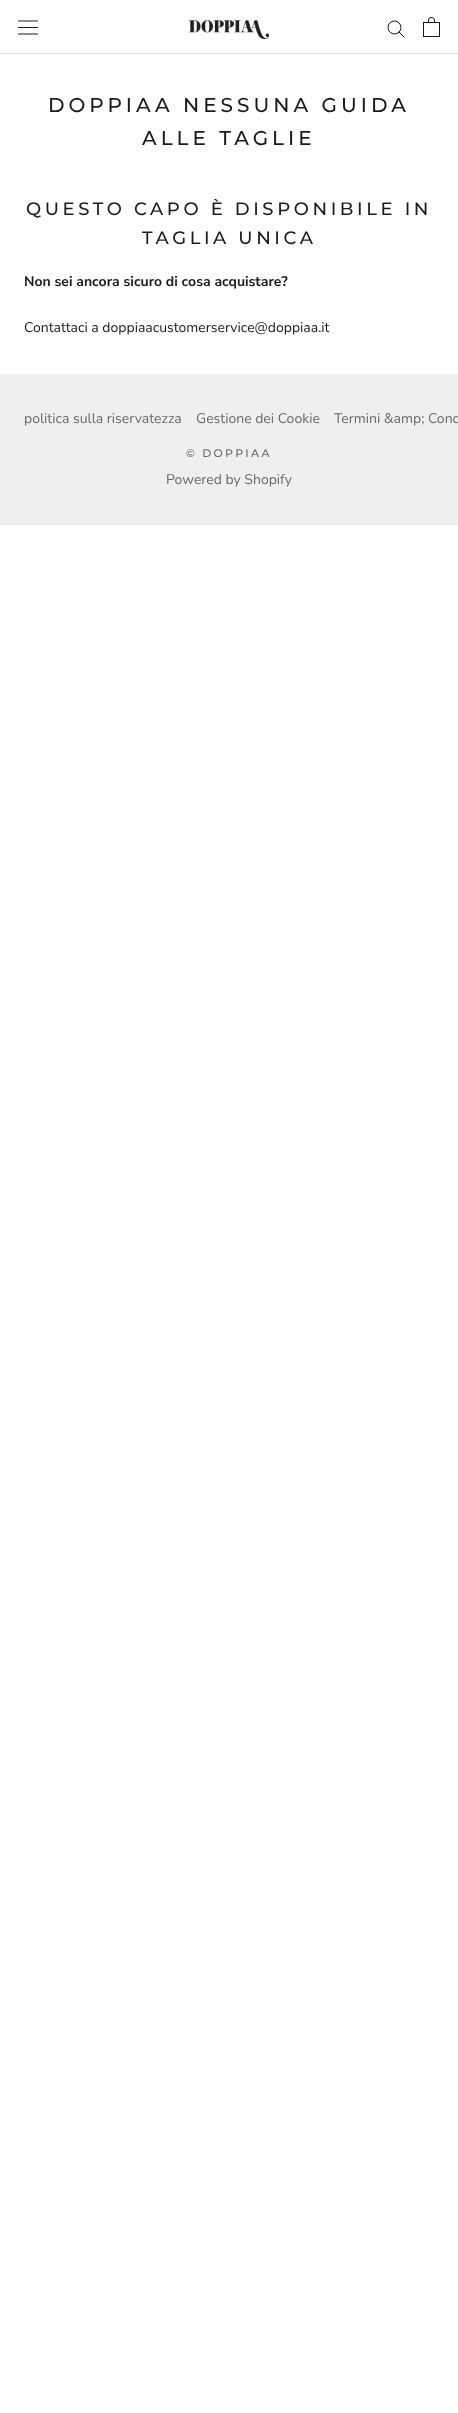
<svg xmlns="http://www.w3.org/2000/svg" width="458" height="2413">
	<rect width="100%" height="100%" fill="#FFFFFF" />
	<rect x="0" y="53" width="458" height="1" fill="#DDDDDD" />
	<image x="18" y="20" width="20" height="15" href="assets/img1.png" />
	<image x="189" y="19" width="80" height="20" href="assets/img2.png" />
	<path d="M404 37L399 32" fill="none" stroke="#1C1B1B" stroke-linecap="square" />
	<circle cx="394.5" cy="27.5" r="6.5" fill="none" stroke="#1C1B1B" />
	<image x="423" y="17" width="17" height="20" href="assets/img3.png" />
	<g font-family="Montserrat" font-size="20" font-weight="500" letter-spacing="4" fill="#1C1B1B">
		<text x="48" y="112">DOPPIAA NESSUNA GUIDA</text>
		<text x="142" y="145">ALLE TAGLIE</text>
	</g>
	<g font-family="Montserrat" font-size="18" font-weight="500" letter-spacing="3.6" fill="#1C1B1B">
		<text x="26" y="215">QUESTO CAPO È DISPONIBILE IN</text>
		<text x="142" y="244">TAGLIA UNICA</text>
	</g>
	<text x="24" y="286" font-family="Nunito Sans" font-size="14" font-weight="700" fill="#1C1B1B">Non sei ancora sicuro di cosa acquistare?</text>
	<text x="24" y="332" font-family="Nunito Sans" font-size="14" fill="#1C1B1B">Contattaci a doppiaacustomerservice@doppiaa.it</text>
	<rect x="0" y="374" width="458" height="151" fill="#EFEFEF" />
	<g font-family="Nunito Sans" font-size="14" fill="#6A6A6A">
		<text x="24" y="423">politica sulla riservatezza</text>
		<text x="196" y="423">Gestione dei Cookie</text>
		<text x="334" y="423">Termini &amp;amp; Cond</text>
	</g>
	<text x="186" y="457" font-family="Montserrat" font-size="11" font-weight="500" letter-spacing="2.25" fill="#6A6A6A">© DOPPIAA</text>
	<text x="166" y="484" font-family="Nunito Sans" font-size="14" fill="#6A6A6A">Powered by Shopify</text>
</svg>
